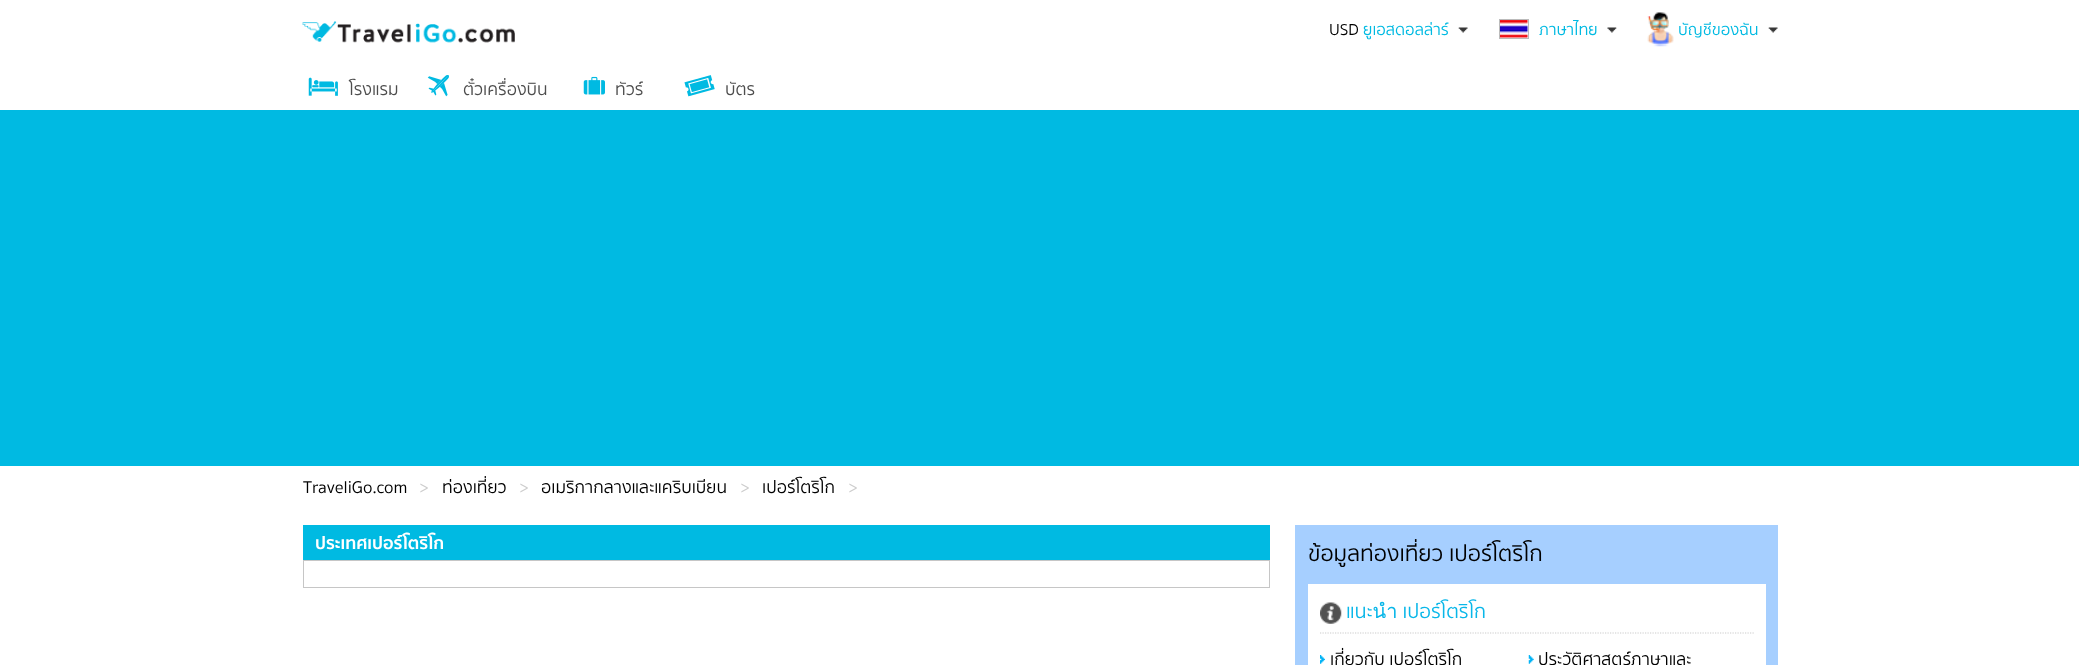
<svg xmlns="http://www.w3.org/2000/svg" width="2079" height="665">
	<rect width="100%" height="100%" fill="#FFFFFF" />
	<image x="302" y="21" width="213" height="22" href="assets/img1.png" />
	<text x="1329" y="35" font-family="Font" font-size="16.25" fill="#000000">USD</text>
	<text x="1363" y="35" font-family="Font" font-size="16.25" fill="#00BAE2">ยูเอสดอลล่าร์</text>
	<image x="1458" y="27" width="10" height="6" href="assets/img2.png" />
	<rect x="1499.5" y="19.5" width="29" height="19" fill="none" stroke="#BBBBBB" />
	<image x="1500" y="20" width="28" height="18" href="assets/img3.png" />
	<text x="1539" y="35" font-family="Font" font-size="16.25" fill="#00BAE2">ภาษาไทย</text>
	<image x="1607" y="27" width="10" height="6" href="assets/img4.png" />
	<image x="1647" y="12" width="27" height="35" href="assets/img5.png" />
	<text x="1678" y="35" font-family="Font" font-size="16.25" fill="#00BAE2">บัญชีของฉัน</text>
	<image x="1768" y="27" width="10" height="6" href="assets/img2.png" />
	<image x="308" y="77" width="30" height="19" href="assets/img6.png" />
	<text x="349" y="95" font-family="Font" font-size="17.5" fill="#4D4D4D">โรงแรม</text>
	<image x="427" y="75" width="22" height="22" href="assets/img7.png" />
	<text x="463" y="95" font-family="Font" font-size="17.5" fill="#4D4D4D">ตั๋วเครื่องบิน</text>
	<image x="583" y="76" width="22" height="19" href="assets/img8.png" />
	<text x="615" y="95" font-family="Font" font-size="17.5" fill="#4D4D4D">ทัวร์</text>
	<image x="684" y="75" width="31" height="22" href="assets/img9.png" />
	<text x="725" y="95" font-family="Font" font-size="17.5" fill="#4D4D4D">บัตร</text>
	<rect x="0" y="110" width="2079" height="356" fill="#00BAE2" />
	<text x="303" y="493" font-family="Font" font-size="17.5" fill="#000000">TraveliGo.com</text>
	<text x="419" y="493" font-family="Font" font-size="17.5" fill="#CCCCCC">&gt;</text>
	<text x="442" y="493" font-family="Font" font-size="17.5" fill="#000000">ท่องเที่ยว</text>
	<text x="519" y="493" font-family="Font" font-size="17.5" fill="#CCCCCC">&gt;</text>
	<text x="541" y="493" font-family="Font" font-size="17.5" fill="#000000">อเมริกากลางและแคริบเบียน</text>
	<text x="740" y="493" font-family="Font" font-size="17.5" fill="#CCCCCC">&gt;</text>
	<text x="762" y="493" font-family="Font" font-size="17.5" fill="#000000">เปอร์โตริโก</text>
	<text x="848" y="493" font-family="Font" font-size="17.5" fill="#CCCCCC">&gt;</text>
	<rect x="303" y="525" width="967" height="35" fill="#00BAE2" />
	<text x="315" y="549" font-family="Font" font-size="17.5" font-weight="700" fill="#FFFFFF">ประเทศเปอร์โตริโก</text>
	<rect x="303.5" y="560.5" width="966" height="27" fill="none" stroke="#C6C6C6" />
	<rect x="1295" y="525" width="483" height="140" fill="#A6CFFF" />
	<text x="1308" y="561" font-family="Font" font-size="22.5" fill="#000000">ข้อมูลท่องเที่ยว เปอร์โตริโก</text>
	<rect x="1308" y="584" width="458" height="81" fill="#FFFFFF" />
	<path d="M1320 633H1754" fill="none" stroke="#CCCCCC" stroke-width="1.2" stroke-dasharray="1.25 1.25" />
	<image x="1320" y="602" width="22" height="22" href="assets/img10.png" />
	<text x="1346" y="618" font-family="Font" font-size="20" fill="#09B7E9">แนะนำ เปอร์โตริโก</text>
	<image x="1320" y="655" width="5" height="9" href="assets/img11.png" />
	<text x="1330" y="665" font-family="Font" font-size="17.5" fill="#000000">เกี่ยวกับ เปอร์โตริโก</text>
	<image x="1528" y="655" width="6" height="9" href="assets/img12.png" />
	<text x="1538" y="665" font-family="Font" font-size="17.5" fill="#000000">ประวัติศาสตร์ภาษาและ</text>
</svg>
